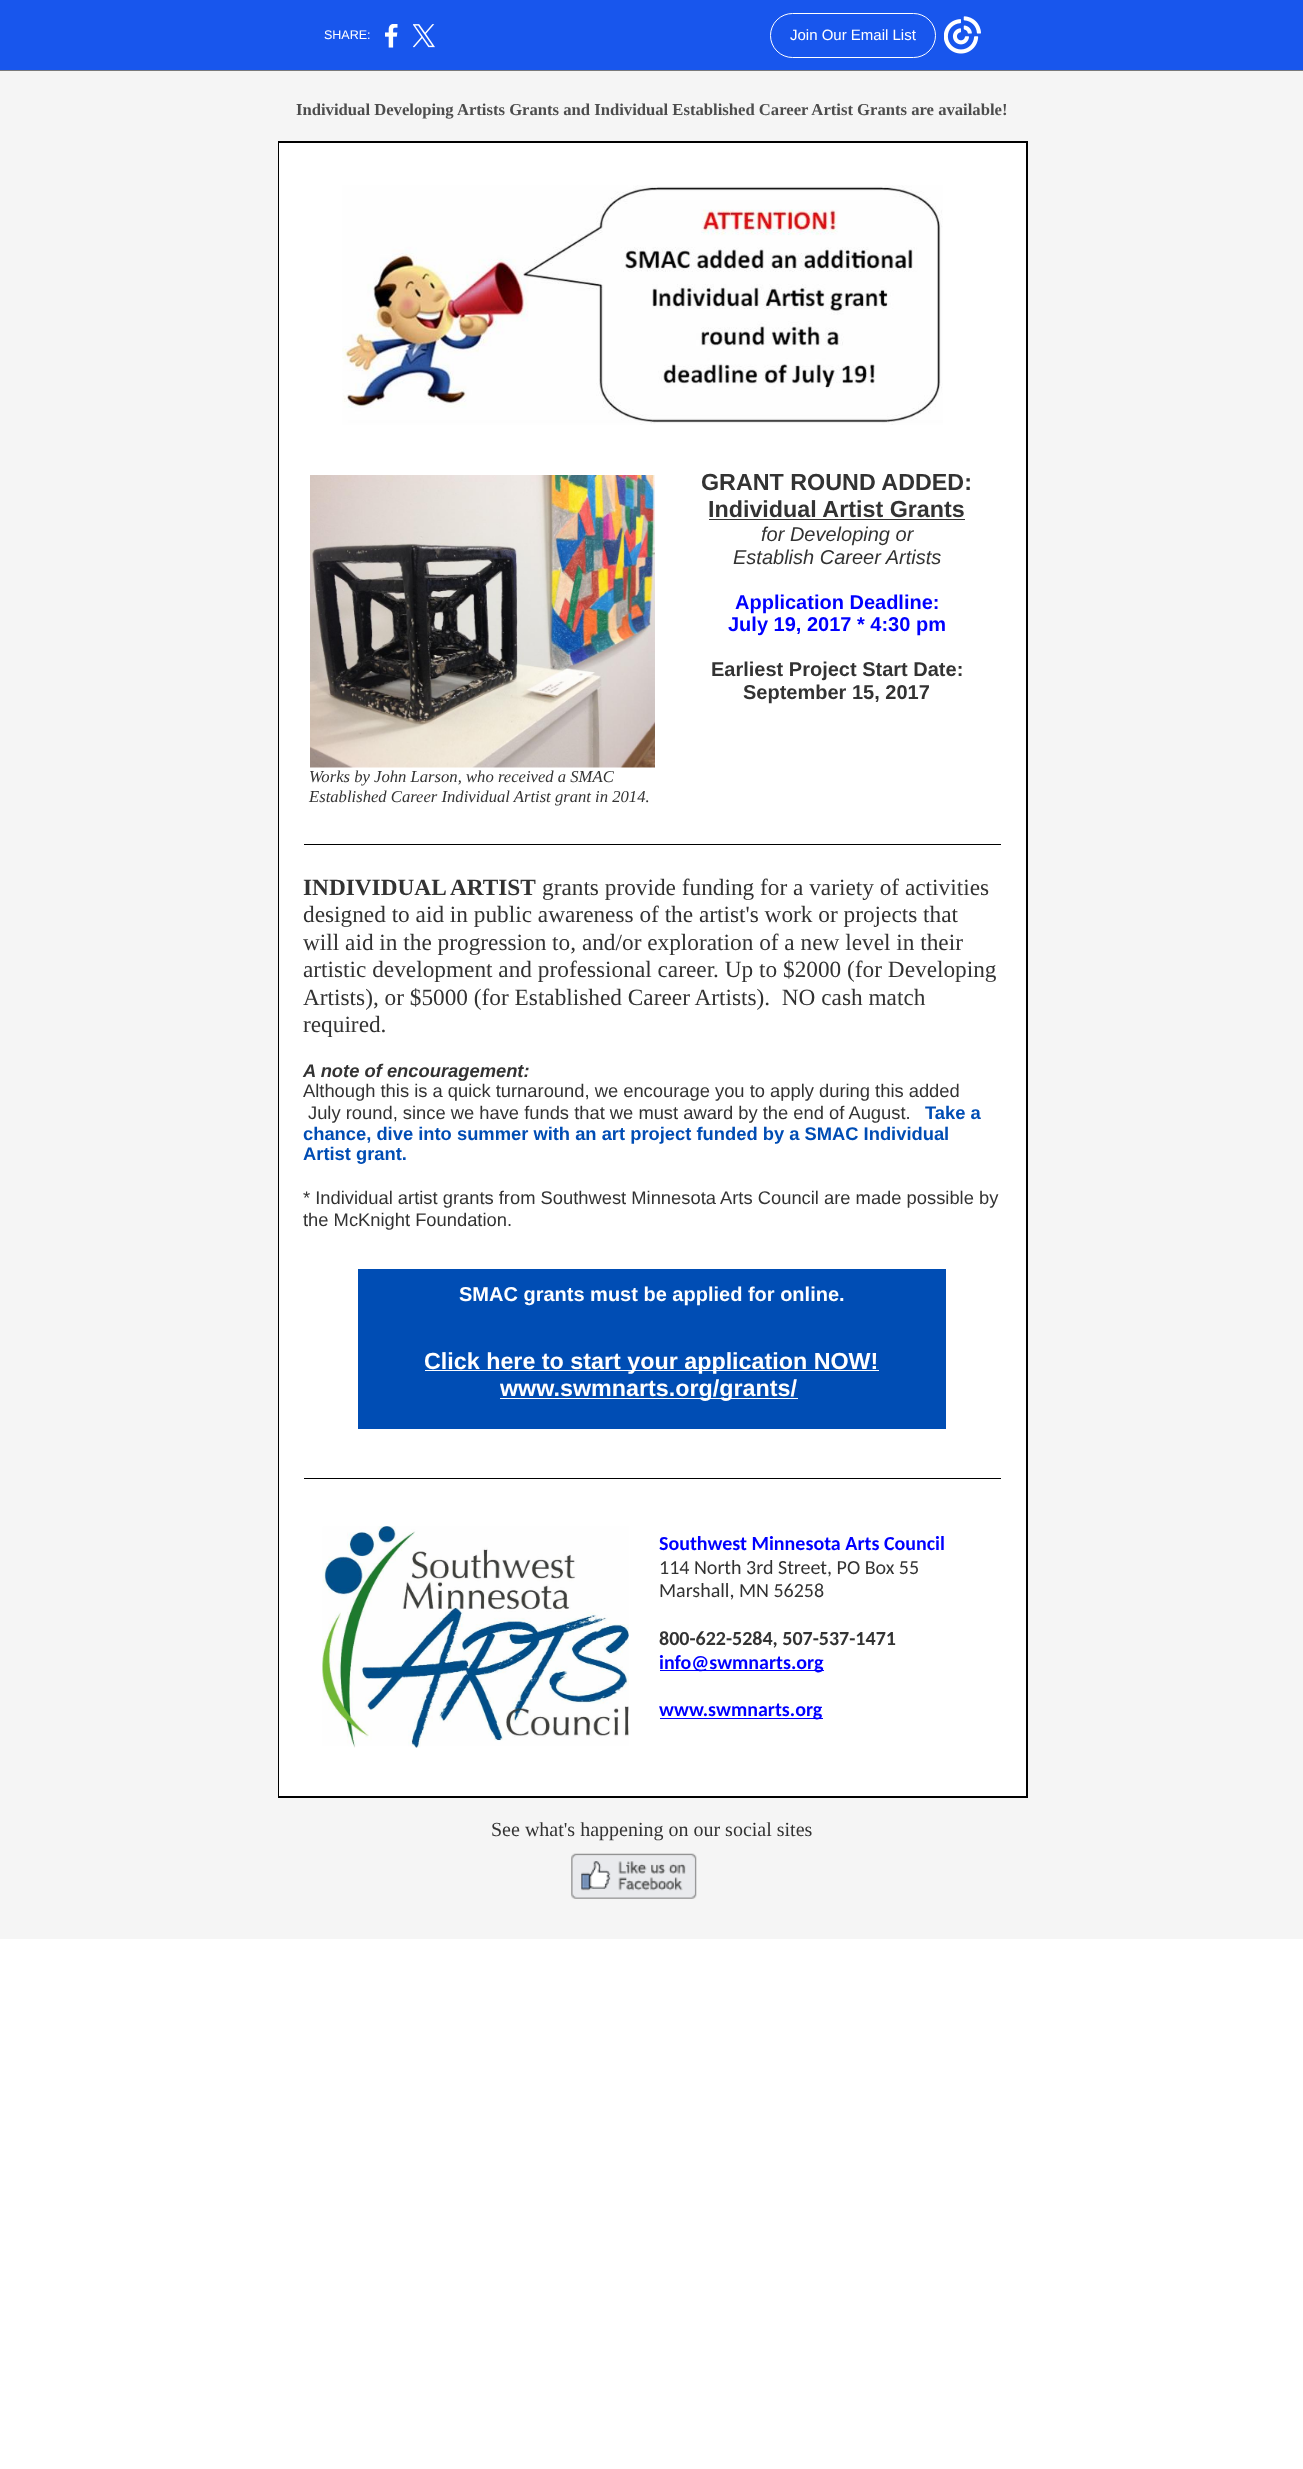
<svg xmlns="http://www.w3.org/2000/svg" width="1303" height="2469">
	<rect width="100%" height="100%" fill="#FFFFFF" />
	<rect x="0" y="0" width="1303" height="70" fill="#1856ED" />
	<rect x="0" y="70" width="1303" height="1" fill="#7A7A7A" />
	<text x="324" y="39" font-family="Liberation Sans" font-size="12.5" fill="#FFFFFF">SHARE:</text>
	<image x="385" y="24" width="13" height="24" href="assets/img1.png" />
	<image x="413" y="24" width="22" height="24" href="assets/img2.png" />
	<rect x="770.5" y="13.5" width="165" height="44" rx="22" fill="none" stroke="#FFFFFF" />
	<text x="790" y="40" font-family="Liberation Sans" font-size="15" fill="#FFFFFF">Join Our Email List</text>
	<image x="944" y="16" width="37" height="38" href="assets/img3.png" />
	<rect x="0" y="71" width="1303" height="1868" fill="#F5F5F5" />
	<text x="296" y="115" font-family="Liberation Serif" font-size="16.65" font-weight="700" fill="#4D4D4D">Individual Developing Artists Grants and Individual Established Career Artist Grants are available!</text>
	<rect x="278" y="141" width="750" height="1657" fill="#000000" />
	<rect x="279" y="143" width="747" height="1653" fill="#FFFFFF" />
	<image x="342" y="185" width="601" height="240" href="assets/img4.png" />
	<g font-family="Liberation Sans" font-size="23.3" font-weight="700" fill="#333333">
		<text x="701" y="490">GRANT ROUND ADDED:</text>
		<text x="708" y="517">Individual Artist Grants</text>
	</g>
	<rect x="709" y="519" width="256" height="1" fill="#333333" />
	<g font-family="Liberation Sans" font-size="20" font-style="italic" fill="#333333">
		<text x="761" y="541">for Developing or</text>
		<text x="733" y="564">Establish Career Artists</text>
	</g>
	<g font-family="Liberation Sans" font-size="20" font-weight="700" fill="#0000FF">
		<text x="735" y="609">Application Deadline:</text>
		<text x="728" y="631">July 19, 2017 * 4:30 pm</text>
	</g>
	<g font-family="Liberation Sans" font-size="20" font-weight="700" fill="#333333">
		<text x="711" y="676">Earliest Project Start Date:</text>
		<text x="743" y="699">September 15, 2017</text>
	</g>
	<image x="310" y="475" width="345" height="293" href="assets/img5.png" />
	<g font-family="Liberation Serif" font-size="16.65" font-style="italic" fill="#333333">
		<text x="309" y="782">Works by John Larson, who received a SMAC</text>
		<text x="309" y="802">Established Career Individual Artist grant in 2014.</text>
	</g>
	<rect x="304" y="844" width="697" height="1" fill="#000000" />
	<text x="303" y="895" font-family="Liberation Serif" font-size="23.3" font-weight="700" fill="#333333">INDIVIDUAL ARTIST</text>
	<g font-family="Liberation Serif" font-size="23.3" fill="#333333">
		<text x="542" y="895">grants provide funding for a variety of activities</text>
		<text x="303" y="922">designed to aid in public awareness of the artist's work or projects that</text>
		<text x="303" y="950">will aid in the progression to, and/or exploration of a new level in their</text>
		<text x="303" y="977">artistic development and professional career. Up to $2000 (for Developing</text>
		<text x="303" y="1005" xml:space="preserve">Artists), or $5000 (for Established Career Artists).  NO cash match</text>
		<text x="303" y="1032">required.</text>
	</g>
	<text x="303" y="1077" font-family="Liberation Sans" font-size="18.35" font-weight="700" font-style="italic" fill="#333333">A note of encouragement:</text>
	<g font-family="Liberation Sans" font-size="18.35" fill="#333333">
		<text x="303" y="1097">Although this is a quick turnaround, we encourage you to apply during this added</text>
		<text x="308" y="1119">July round, since we have funds that we must award by the end of August.</text>
	</g>
	<g font-family="Liberation Sans" font-size="18.35" font-weight="700" fill="#004DB4">
		<text x="925" y="1119">Take a</text>
		<text x="303" y="1140">chance, dive into summer with an art project funded by a SMAC Individual</text>
		<text x="303" y="1160">Artist grant.</text>
	</g>
	<g font-family="Liberation Sans" font-size="18.35" fill="#333333">
		<text x="303" y="1204">* Individual artist grants from Southwest Minnesota Arts Council are made possible by</text>
		<text x="303" y="1226">the McKnight Foundation.</text>
	</g>
	<rect x="358" y="1269" width="588" height="160" fill="#004DB4" />
	<text x="459" y="1301" font-family="Liberation Sans" font-size="20" font-weight="700" fill="#FFFFFF">SMAC grants must be applied for online.</text>
	<rect x="425" y="1370" width="454" height="1" fill="#FFFFFF" />
	<text x="424" y="1369" font-family="Liberation Sans" font-size="23.3" font-weight="700" fill="#FFFFFF">Click here to start your application NOW!</text>
	<rect x="500" y="1398" width="298" height="1" fill="#FFFFFF" />
	<text x="500" y="1396" font-family="Liberation Sans" font-size="23.3" font-weight="700" fill="#FFFFFF">www.swmnarts.org/grants/</text>
	<rect x="304" y="1478" width="697" height="1" fill="#000000" />
	<image x="322" y="1526" width="307" height="222" href="assets/img6.png" />
	<text x="659" y="1550" font-family="Carlito" font-size="20" font-weight="700" fill="#0000FF">Southwest Minnesota Arts Council</text>
	<g font-family="Carlito" font-size="20" fill="#333333">
		<text x="659" y="1574">114 North 3rd Street, PO Box 55</text>
		<text x="659" y="1597">Marshall, MN 56258</text>
	</g>
	<text x="659" y="1645" font-family="Carlito" font-size="20" font-weight="700" fill="#333333">800-622-5284, 507-537-1471</text>
	<rect x="660" y="1670" width="164" height="1" fill="#0000FF" />
	<text x="659" y="1669" font-family="Carlito" font-size="20" font-weight="700" fill="#0000FF">info@swmnarts.org</text>
	<rect x="660" y="1718" width="163" height="1" fill="#0000FF" />
	<text x="659" y="1716" font-family="Carlito" font-size="20" font-weight="700" fill="#0000FF">www.swmnarts.org</text>
	<text x="491" y="1836" font-family="Liberation Serif" font-size="20" fill="#333333">See what's happening on our social sites</text>
	<image x="571" y="1853" width="126" height="46" href="assets/img7.png" />
</svg>
